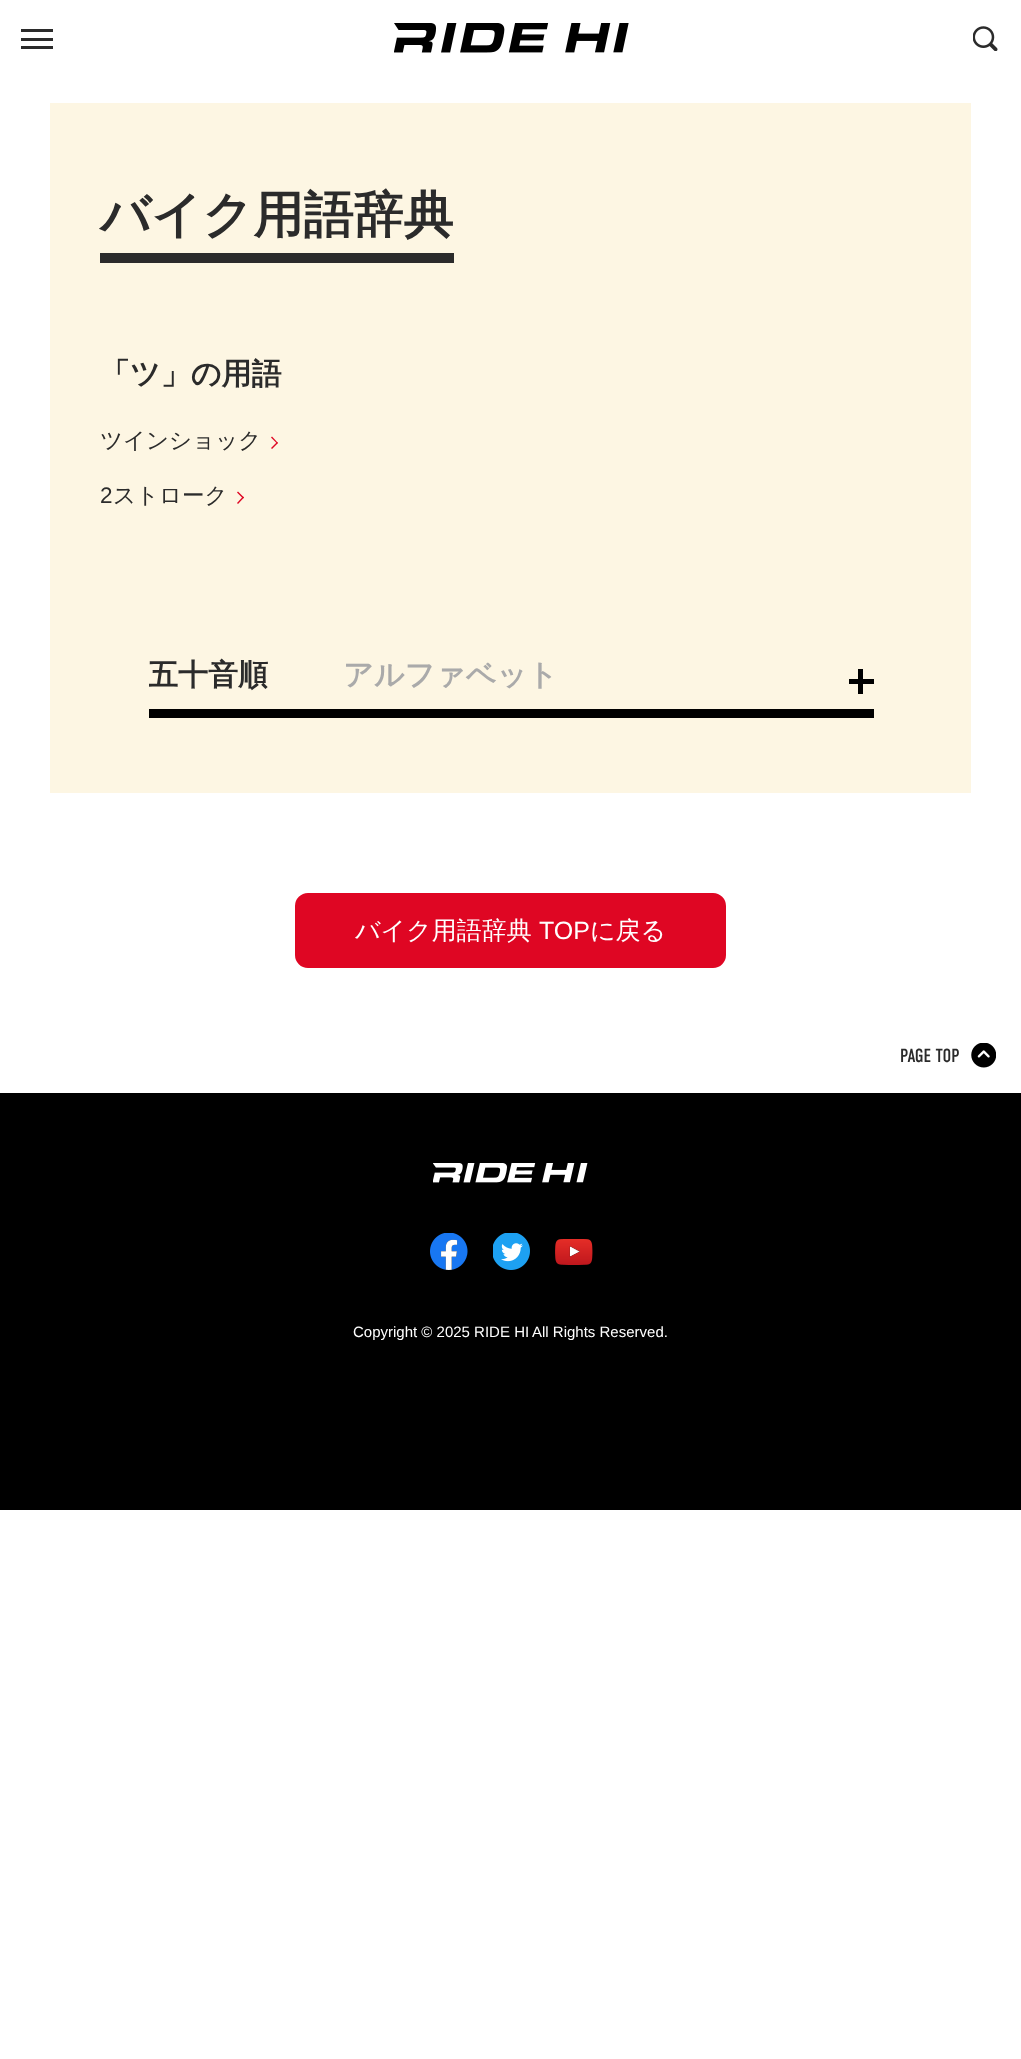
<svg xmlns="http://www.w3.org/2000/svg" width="1021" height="2059">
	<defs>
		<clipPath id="clip1"><rect x="149" y="651" width="725" height="67" /></clipPath>
	</defs>
	<rect width="100%" height="100%" fill="#FFFFFF" />
	<rect x="21" y="29" width="32" height="3" fill="#2B2B2B" />
	<rect x="21" y="38" width="32" height="3" fill="#2B2B2B" />
	<rect x="21" y="46" width="32" height="3" fill="#2B2B2B" />
	<image x="394" y="23" width="235" height="30" href="assets/img1.png" />
	<image x="973" y="26" width="25" height="25" href="assets/img2.png" />
	<rect x="50" y="103" width="921" height="690" fill="#FDF6E3" />
	<rect x="100" y="253" width="354" height="10" fill="#2B2B2B" />
	<text x="100" y="232" font-family="WenQuanYi Zen Hei" font-size="50" font-weight="700" fill="#2B2B2B">バイク用語辞典</text>
	<text x="100" y="384" font-family="WenQuanYi Zen Hei" font-size="30" font-weight="700" fill="#2B2B2B">「ツ」の用語</text>
	<text x="100" y="448" font-family="WenQuanYi Zen Hei" font-size="22.5" font-weight="500" fill="#2B2B2B">ツインショック</text>
	<path d="M272 436.5L278 443L277 443.5L271 437.5Z" fill="#DF0623" />
	<path d="M277 442L278 443L272 449L271 448ZM238 491.5L244 497.5L243 498.5L237 492.5Z" fill="#DF0623" />
	<text x="100" y="503" font-family="Liberation Sans" font-size="22.5" fill="#2B2B2B">2</text>
	<text x="113" y="503" font-family="WenQuanYi Zen Hei" font-size="22.5" font-weight="500" fill="#2B2B2B">ストローク</text>
	<path d="M243 496.5L244 497.5L238 504L237 503Z" fill="#DF0623" />
	<g clip-path="url(#clip1)">
		<text x="148" y="685" font-family="WenQuanYi Zen Hei" font-size="30" font-weight="700" fill="#2B2B2B">五十音順</text>
	</g>
	<text x="343" y="685" font-family="WenQuanYi Zen Hei" font-size="30" font-weight="700" fill="#AAAAAA">アルファベット</text>
	<rect x="849" y="679" width="25" height="5" fill="#000000" />
	<rect x="858" y="669" width="5" height="25" fill="#000000" />
	<rect x="149" y="709" width="725" height="9" fill="#000000" />
	<rect x="296.5" y="894.5" width="428" height="72" rx="11.5" fill="#DF0623" stroke="#DF0623" stroke-width="3" />
	<text x="355" y="939" font-family="WenQuanYi Zen Hei" font-size="25" font-weight="500" fill="#FFFFFF">バイク用語辞典</text>
	<text x="539" y="939" font-family="Liberation Sans" font-size="25" fill="#FFFFFF">TOP</text>
	<text x="590" y="939" font-family="WenQuanYi Zen Hei" font-size="25" font-weight="500" fill="#FFFFFF">に戻る</text>
	<rect x="0" y="1093" width="1021" height="417" fill="#000000" />
	<text x="900" y="1062" font-family="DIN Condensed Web" font-size="19" fill="#2B2B2B">PAGE TOP</text>
	<image x="971" y="1043" width="25" height="25" href="assets/img3.png" />
	<image x="433" y="1163" width="155" height="20" href="assets/img4.png" />
	<image x="430" y="1233" width="38" height="37" href="assets/img5.png" />
	<image x="493" y="1233" width="37" height="37" href="assets/img6.png" />
	<image x="555" y="1239" width="38" height="26" href="assets/img7.png" />
	<g font-family="Liberation Sans" font-size="15" fill="#FFFFFF">
		<text x="353" y="1337">Copyright © 2025 RIDE HI</text>
		<text x="532" y="1337">All Rights Reserved.</text>
	</g>
</svg>
